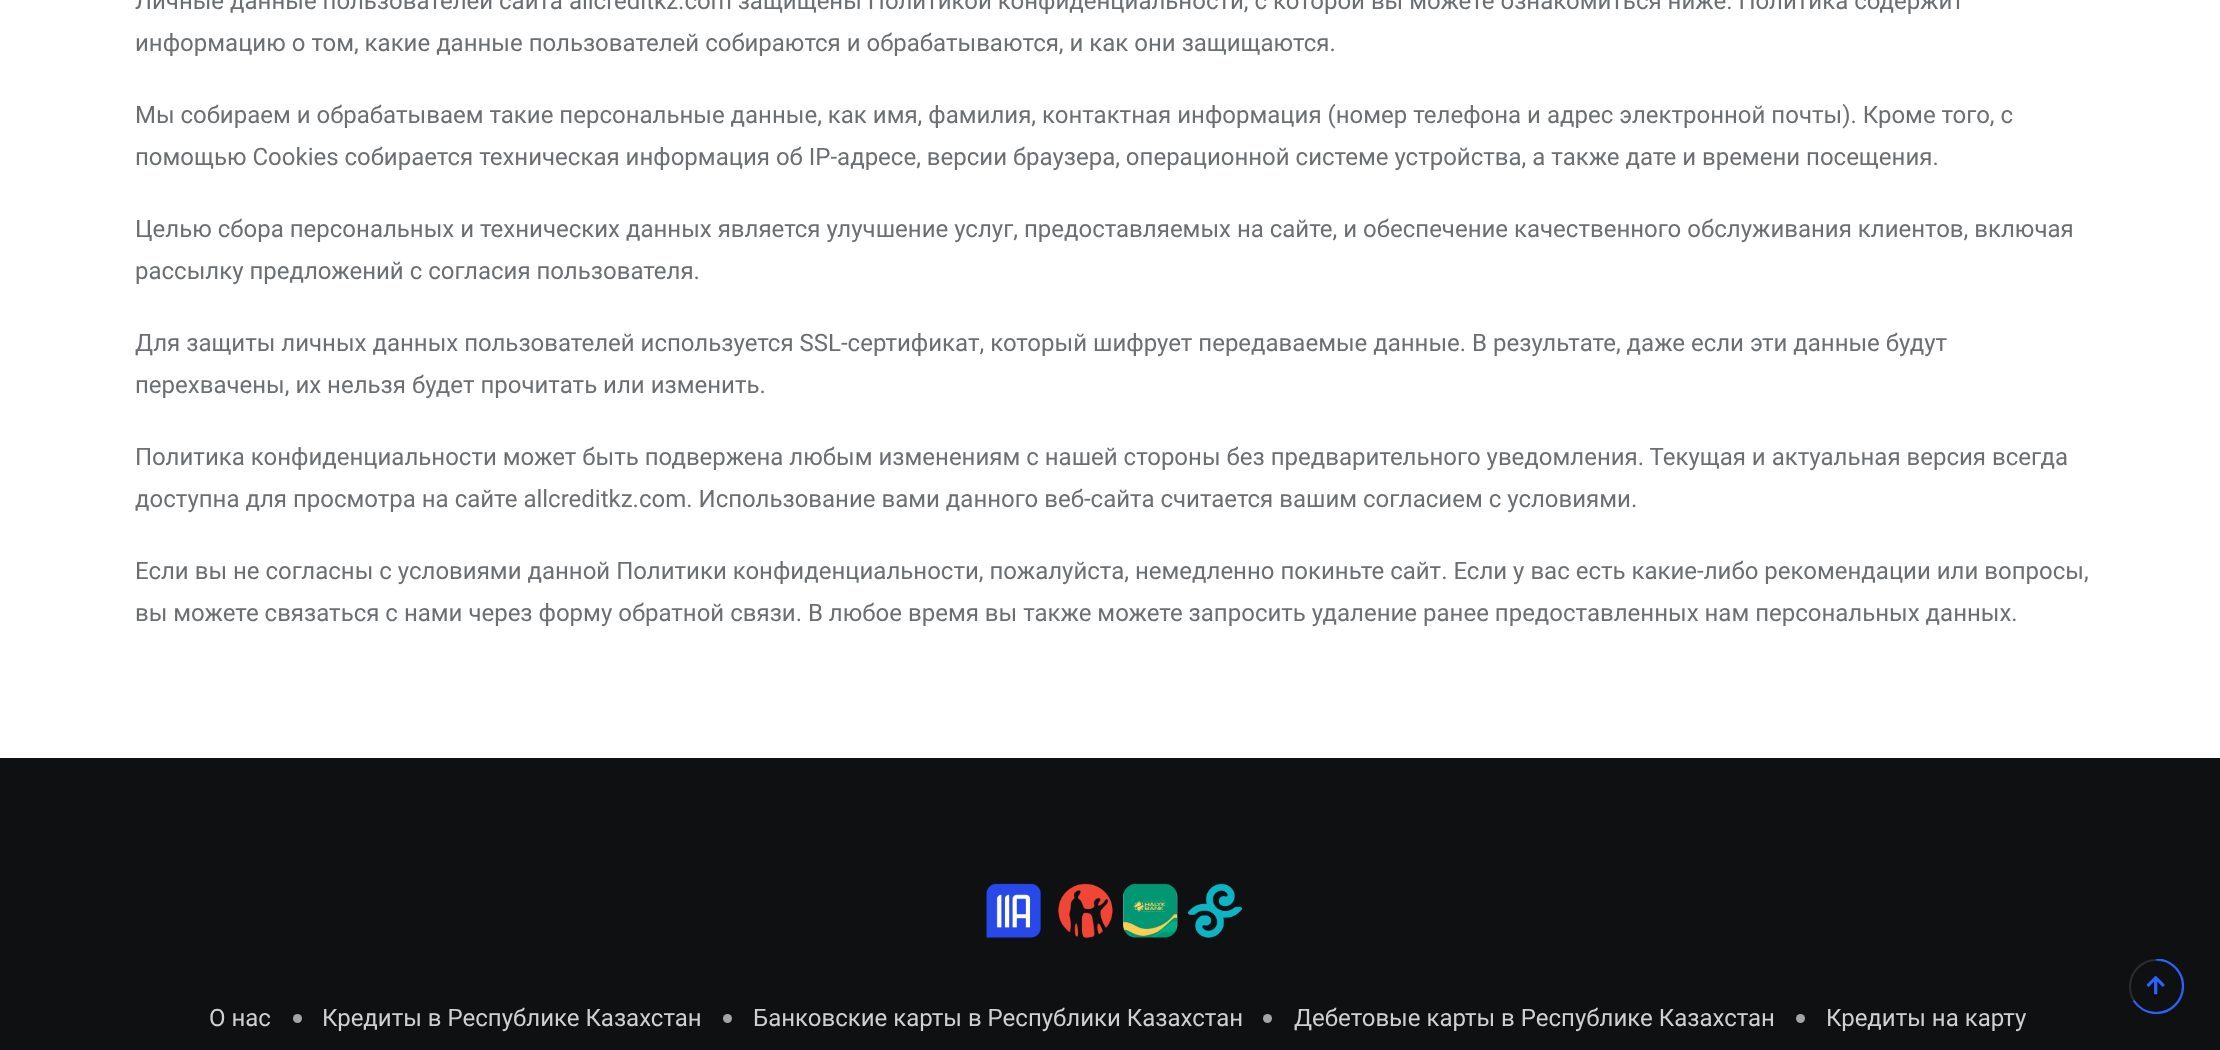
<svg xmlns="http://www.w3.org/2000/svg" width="2220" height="1050">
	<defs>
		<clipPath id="clip1"><rect x="2129" y="959" width="55" height="55" /></clipPath>
	</defs>
	<rect width="100%" height="100%" fill="#FFFFFF" />
	<g font-family="Roboto" font-size="24" fill="#6C6F72">
		<text x="135" y="9">Личные данные пользователей сайта allcreditkz.com защищены Политикой конфиденциальности, с которой вы можете ознакомиться ниже. Политика содержит</text>
		<text x="135" y="51">информацию о том, какие данные пользователей собираются и обрабатываются, и как они защищаются.</text>
		<text x="135" y="123">Мы собираем и обрабатываем такие персональные данные, как имя, фамилия, контактная информация (номер телефона и адрес электронной почты). Кроме того, с</text>
		<text x="135" y="165">помощью Cookies собирается техническая информация об IP-адресе, версии браузера, операционной системе устройства, а также дате и времени посещения.</text>
		<text x="135" y="237">Целью сбора персональных и технических данных является улучшение услуг, предоставляемых на сайте, и обеспечение качественного обслуживания клиентов, включая</text>
		<text x="135" y="279">рассылку предложений с согласия пользователя.</text>
		<text x="135" y="351">Для защиты личных данных пользователей используется SSL-сертификат, который шифрует передаваемые данные. В результате, даже если эти данные будут</text>
		<text x="135" y="393">перехвачены, их нельзя будет прочитать или изменить.</text>
		<text x="135" y="465">Политика конфиденциальности может быть подвержена любым изменениям с нашей стороны без предварительного уведомления. Текущая и актуальная версия всегда</text>
		<text x="135" y="507">доступна для просмотра на сайте allcreditkz.com. Использование вами данного веб-сайта считается вашим согласием с условиями.</text>
		<text x="135" y="579">Если вы не согласны с условиями данной Политики конфиденциальности, пожалуйста, немедленно покиньте сайт. Если у вас есть какие-либо рекомендации или вопросы,</text>
		<text x="135" y="621">вы можете связаться с нами через форму обратной связи. В любое время вы также можете запросить удаление ранее предоставленных нам персональных данных.</text>
	</g>
	<rect x="0" y="758" width="2220" height="292" fill="#0F1012" />
	<circle cx="2156.5" cy="986.5" r="26.5" fill="none" stroke="#2B2D2F" stroke-width="2" />
	<g clip-path="url(#clip1)">
		<path d="M2156 959.5C2171 959.5 2183 971.5 2183 986C2183 1001 2171 1013 2156 1013C2147 1013 2138.5 1008 2133.5 1000.5" fill="none" stroke="#2962FF" stroke-width="2.2" />
	</g>
	<image x="2146" y="976" width="19" height="19" href="assets/img1.png" />
	<image x="986" y="883" width="256" height="55" href="assets/img2.png" />
	<text x="209" y="1026" font-family="Roboto" font-size="24" fill="#D0D0D0">О нас</text>
	<circle cx="297.5" cy="1018.5" r="4.5" fill="#A5A5A5" />
	<text x="322" y="1026" font-family="Roboto" font-size="24" fill="#D0D0D0">Кредиты в Республике Казахстан</text>
	<circle cx="727.5" cy="1018.5" r="4.5" fill="#A5A5A5" />
	<text x="753" y="1026" font-family="Roboto" font-size="24" fill="#D0D0D0">Банковские карты в Республики Казахстан</text>
	<circle cx="1267.5" cy="1018.5" r="4.5" fill="#A5A5A5" />
	<text x="1294" y="1026" font-family="Roboto" font-size="24" fill="#D0D0D0">Дебетовые карты в Республике Казахстан</text>
	<circle cx="1800.5" cy="1018.5" r="4.5" fill="#A5A5A5" />
	<text x="1826" y="1026" font-family="Roboto" font-size="24" fill="#D0D0D0">Кредиты на карту</text>
</svg>
